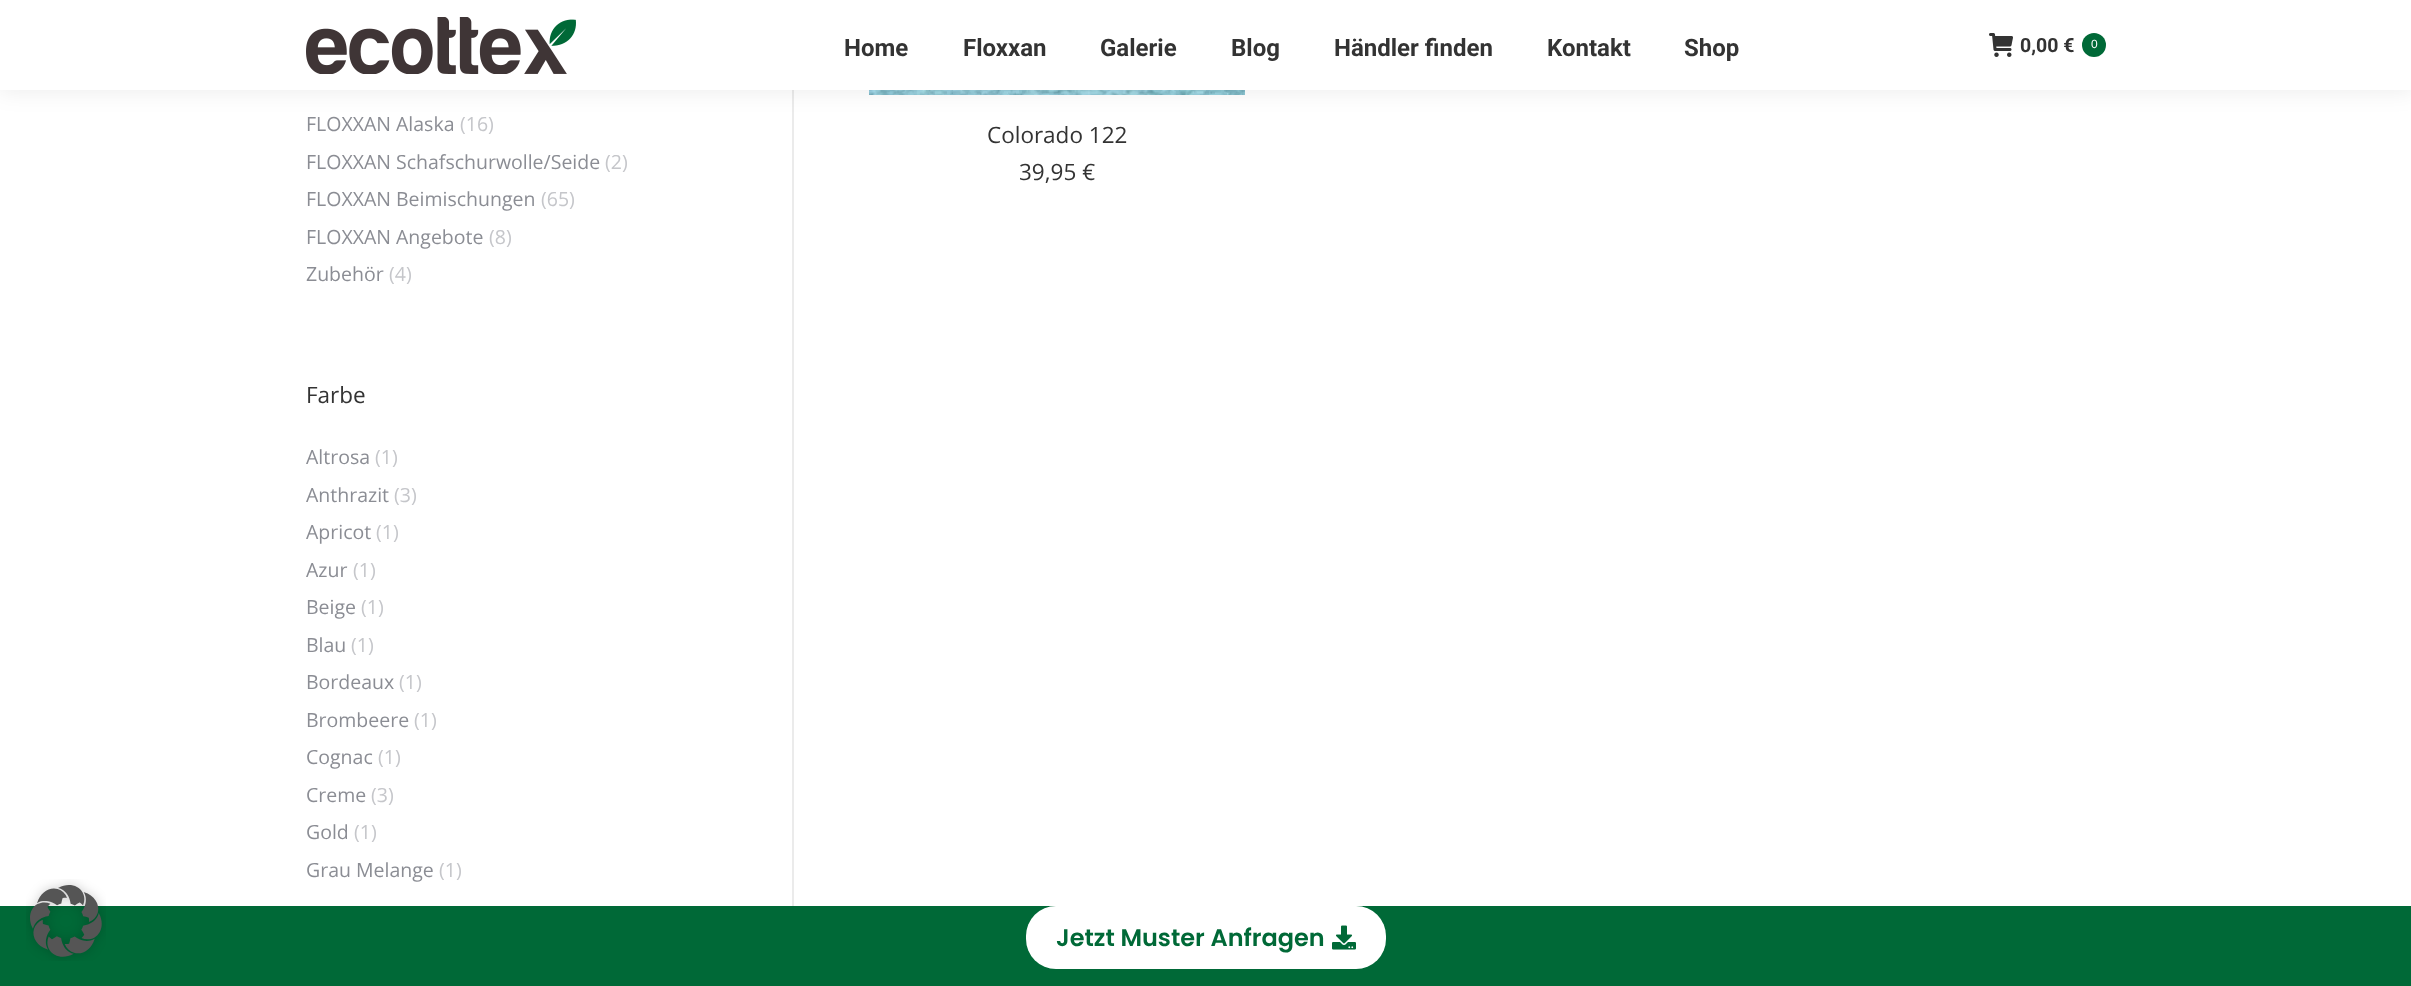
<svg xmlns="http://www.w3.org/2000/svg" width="2411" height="986">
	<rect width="100%" height="100%" fill="#FFFFFF" />
	<rect x="792" y="90" width="2" height="816" fill="#EBEBEB" />
	<image x="869" y="90" width="376" height="5" href="assets/img3.png" />
	<rect x="-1" y="-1" width="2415" height="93" fill="#000000" fill-opacity="0.07" filter="blur(11px)" />
	<rect x="0" y="0" width="2411" height="90" fill="#FFFFFF" />
	<image x="306" y="17" width="270" height="57" href="assets/img1.png" />
	<g font-family="Roboto" font-size="24" font-weight="700" fill="#333333">
		<text x="844" y="56">Home</text>
		<text x="963" y="56">Floxxan</text>
		<text x="1100" y="56">Galerie</text>
		<text x="1231" y="56">Blog</text>
		<text x="1334" y="56">Händler finden</text>
		<text x="1547" y="56">Kontakt</text>
		<text x="1684" y="56">Shop</text>
	</g>
	<image x="1989" y="33" width="24" height="24" href="assets/img2.png" />
	<text x="2020" y="52" font-family="Roboto" font-size="19.5" font-weight="700" fill="#333333">0,00 €</text>
	<circle cx="2094" cy="45" r="12" fill="#006937" />
	<text x="2091" y="48" font-family="Liberation Sans" font-size="12" fill="#FFFFFF">0</text>
	<text x="306" y="131" font-family="Open Sans" font-size="19.5" fill="#8B8D94">FLOXXAN Alaska</text>
	<text x="460" y="131" font-family="Open Sans" font-size="19.5" fill="#C5C6CA">(16)</text>
	<text x="306" y="169" font-family="Open Sans" font-size="19.5" fill="#8B8D94">FLOXXAN Schafschurwolle/Seide</text>
	<text x="605" y="169" font-family="Open Sans" font-size="19.5" fill="#C5C6CA">(2)</text>
	<text x="306" y="206" font-family="Open Sans" font-size="19.5" fill="#8B8D94">FLOXXAN Beimischungen</text>
	<text x="541" y="206" font-family="Open Sans" font-size="19.5" fill="#C5C6CA">(65)</text>
	<text x="306" y="244" font-family="Open Sans" font-size="19.5" fill="#8B8D94">FLOXXAN Angebote</text>
	<text x="489" y="244" font-family="Open Sans" font-size="19.5" fill="#C5C6CA">(8)</text>
	<text x="306" y="281" font-family="Open Sans" font-size="19.5" fill="#8B8D94">Zubehör</text>
	<text x="389" y="281" font-family="Open Sans" font-size="19.5" fill="#C5C6CA">(4)</text>
	<text x="306" y="403" font-family="Open Sans" font-size="22.5" fill="#333333">Farbe</text>
	<text x="306" y="464" font-family="Open Sans" font-size="19.5" fill="#8B8D94">Altrosa</text>
	<text x="375" y="464" font-family="Open Sans" font-size="19.5" fill="#C5C6CA">(1)</text>
	<text x="306" y="502" font-family="Open Sans" font-size="19.5" fill="#8B8D94">Anthrazit</text>
	<text x="394" y="502" font-family="Open Sans" font-size="19.5" fill="#C5C6CA">(3)</text>
	<text x="306" y="539" font-family="Open Sans" font-size="19.5" fill="#8B8D94">Apricot</text>
	<text x="376" y="539" font-family="Open Sans" font-size="19.5" fill="#C5C6CA">(1)</text>
	<text x="306" y="577" font-family="Open Sans" font-size="19.5" fill="#8B8D94">Azur</text>
	<text x="353" y="577" font-family="Open Sans" font-size="19.5" fill="#C5C6CA">(1)</text>
	<text x="306" y="614" font-family="Open Sans" font-size="19.5" fill="#8B8D94">Beige</text>
	<text x="361" y="614" font-family="Open Sans" font-size="19.5" fill="#C5C6CA">(1)</text>
	<text x="306" y="652" font-family="Open Sans" font-size="19.5" fill="#8B8D94">Blau</text>
	<text x="351" y="652" font-family="Open Sans" font-size="19.5" fill="#C5C6CA">(1)</text>
	<text x="306" y="689" font-family="Open Sans" font-size="19.5" fill="#8B8D94">Bordeaux</text>
	<text x="399" y="689" font-family="Open Sans" font-size="19.5" fill="#C5C6CA">(1)</text>
	<text x="306" y="727" font-family="Open Sans" font-size="19.5" fill="#8B8D94">Brombeere</text>
	<text x="414" y="727" font-family="Open Sans" font-size="19.5" fill="#C5C6CA">(1)</text>
	<text x="306" y="764" font-family="Open Sans" font-size="19.5" fill="#8B8D94">Cognac</text>
	<text x="378" y="764" font-family="Open Sans" font-size="19.5" fill="#C5C6CA">(1)</text>
	<text x="306" y="802" font-family="Open Sans" font-size="19.5" fill="#8B8D94">Creme</text>
	<text x="371" y="802" font-family="Open Sans" font-size="19.5" fill="#C5C6CA">(3)</text>
	<text x="306" y="839" font-family="Open Sans" font-size="19.5" fill="#8B8D94">Gold</text>
	<text x="354" y="839" font-family="Open Sans" font-size="19.5" fill="#C5C6CA">(1)</text>
	<text x="306" y="877" font-family="Open Sans" font-size="19.5" fill="#8B8D94">Grau Melange</text>
	<text x="439" y="877" font-family="Open Sans" font-size="19.5" fill="#C5C6CA">(1)</text>
	<g font-family="Open Sans" font-size="22.5" fill="#333333">
		<text x="987" y="143">Colorado 122</text>
		<text x="1019" y="180">39,95 €</text>
	</g>
	<rect x="0" y="906" width="2411" height="80" fill="#006937" />
	<image x="26" y="879" width="80" height="82" href="assets/img4.png" />
	<rect x="1026" y="906" width="360" height="63" rx="30" fill="#FFFFFF" />
	<text x="1056" y="946" font-family="Poppins" font-size="24" font-weight="600" fill="#006937">Jetzt Muster Anfragen</text>
	<image x="1332" y="925" width="24" height="25" href="assets/img5.png" />
</svg>
